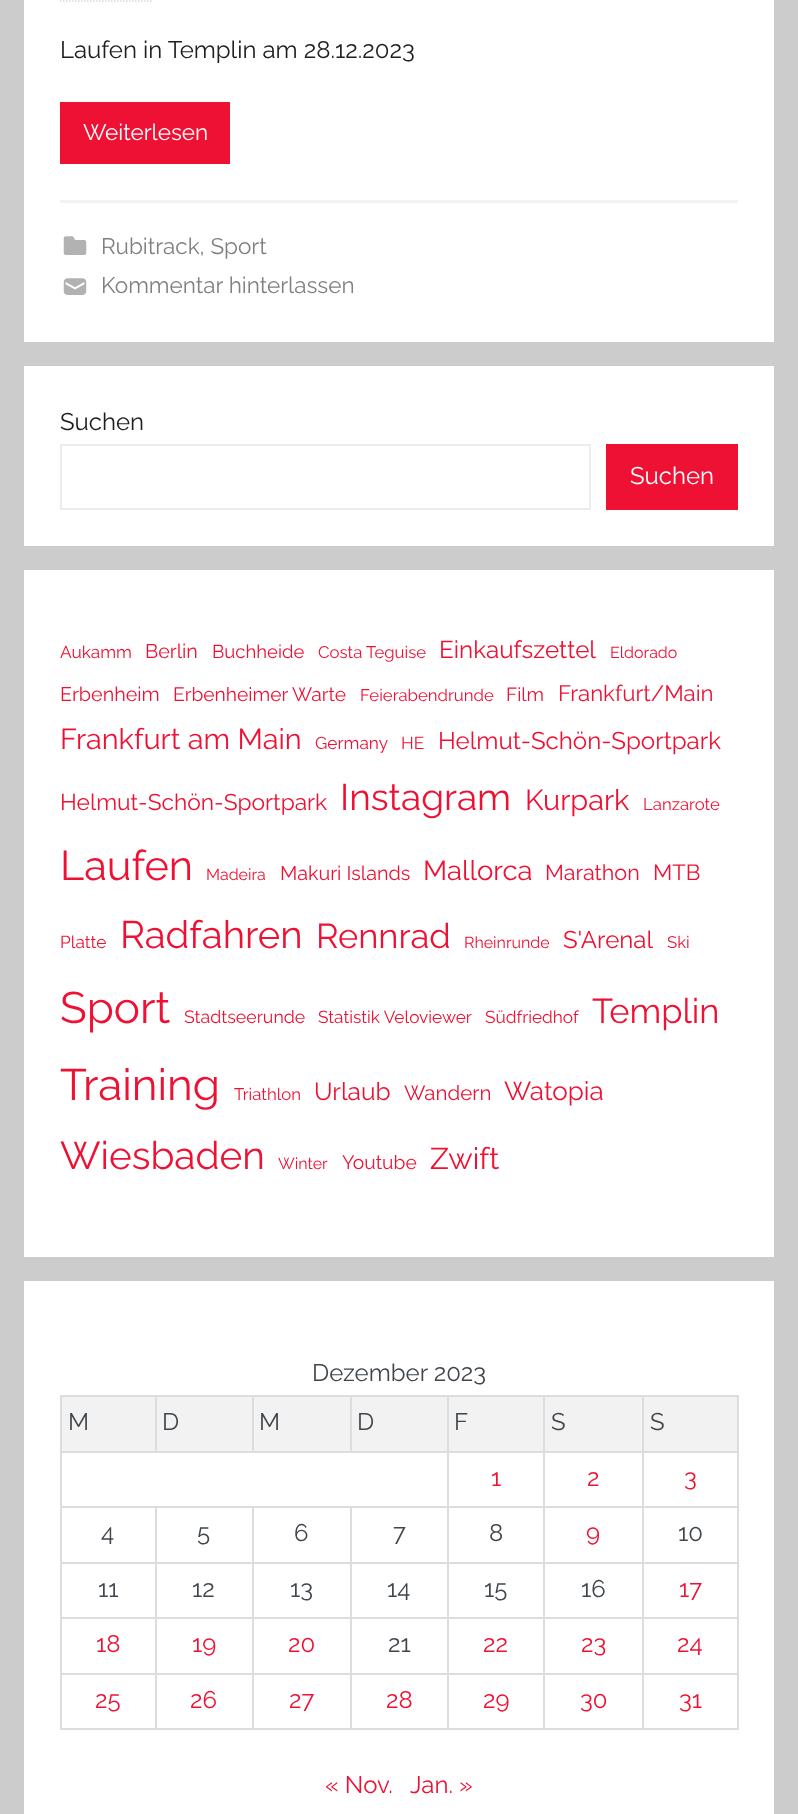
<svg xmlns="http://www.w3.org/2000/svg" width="798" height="1814">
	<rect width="100%" height="100%" fill="#CCCCCC" />
	<rect x="24" y="0" width="750" height="342" fill="#FFFFFF" />
	<path d="M60 1H151.5" fill="none" stroke="#D9D9D9" stroke-width="1.5" stroke-dasharray="1.5 1.5" />
	<text x="60" y="58" font-family="Raleway" font-size="24" fill="#202020">Laufen in Templin am 28.12.2023</text>
	<rect x="60" y="102" width="170" height="62" fill="#EE1133" />
	<text x="83" y="140" font-family="Raleway" font-size="22.5" fill="#FFFFFF">Weiterlesen</text>
	<rect x="60" y="200" width="678" height="3" fill="#F2F2F2" />
	<image x="63" y="236" width="24" height="19" href="assets/img1.png" />
	<text x="101" y="254" font-family="Raleway" font-size="22.5" fill="#808080">Rubitrack, Sport</text>
	<image x="63" y="278" width="24" height="17" href="assets/img2.png" />
	<text x="101" y="293" font-family="Raleway" font-size="22.5" fill="#808080">Kommentar hinterlassen</text>
	<rect x="24" y="366" width="750" height="180" fill="#FFFFFF" />
	<text x="60" y="430" font-family="Raleway" font-size="24" fill="#202020">Suchen</text>
	<rect x="61" y="445" width="529" height="64" fill="none" stroke="#ECECEC" stroke-width="2" />
	<rect x="606" y="444" width="132" height="66" fill="#EE1133" />
	<text x="630" y="484" font-family="Raleway" font-size="24" fill="#FFFFFF">Suchen</text>
	<rect x="24" y="570" width="750" height="687" fill="#FFFFFF" />
	<text x="60" y="658" font-family="Raleway" font-size="17.25" fill="#EE1133">Aukamm</text>
	<text x="145" y="658" font-family="Raleway" font-size="19.75" fill="#EE1133">Berlin</text>
	<text x="212" y="658" font-family="Raleway" font-size="18.5" fill="#EE1133">Buchheide</text>
	<text x="318" y="658" font-family="Raleway" font-size="16.75" fill="#EE1133">Costa Teguise</text>
	<text x="439" y="658" font-family="Raleway" font-size="24.25" fill="#EE1133">Einkaufszettel</text>
	<text x="610" y="658" font-family="Raleway" font-size="16" fill="#EE1133">Eldorado</text>
	<text x="60" y="701" font-family="Raleway" font-size="19.75" fill="#EE1133">Erbenheim</text>
	<text x="173" y="701" font-family="Raleway" font-size="19.25" fill="#EE1133">Erbenheimer Warte</text>
	<text x="360" y="701" font-family="Raleway" font-size="16.75" fill="#EE1133">Feierabendrunde</text>
	<text x="506" y="701" font-family="Raleway" font-size="19" fill="#EE1133">Film</text>
	<text x="558" y="701" font-family="Raleway" font-size="22.25" fill="#EE1133">Frankfurt/Main</text>
	<text x="60" y="749" font-family="Raleway" font-size="28.9" fill="#EE1133">Frankfurt am Main</text>
	<g font-family="Raleway" font-size="17.25" fill="#EE1133">
		<text x="315" y="749">Germany</text>
		<text x="401" y="749">HE</text>
	</g>
	<text x="438" y="749" font-family="Raleway" font-size="24.1" fill="#EE1133">Helmut-Schön-Sportpark</text>
	<text x="60" y="810" font-family="Raleway" font-size="22.75" fill="#EE1133">Helmut-Schön-Sportpark</text>
	<text x="340" y="810" font-family="Raleway" font-size="37" fill="#EE1133">Instagram</text>
	<text x="525" y="810" font-family="Raleway" font-size="28.9" fill="#EE1133">Kurpark</text>
	<text x="643" y="810" font-family="Raleway" font-size="16.75" fill="#EE1133">Lanzarote</text>
	<text x="60" y="880" font-family="Raleway" font-size="41.5" fill="#EE1133">Laufen</text>
	<text x="206" y="880" font-family="Raleway" font-size="16" fill="#EE1133">Madeira</text>
	<text x="280" y="880" font-family="Raleway" font-size="19.75" fill="#EE1133">Makuri Islands</text>
	<text x="423" y="880" font-family="Raleway" font-size="27.5" fill="#EE1133">Mallorca</text>
	<text x="545" y="880" font-family="Raleway" font-size="21.5" fill="#EE1133">Marathon</text>
	<text x="653" y="880" font-family="Raleway" font-size="22" fill="#EE1133">MTB</text>
	<text x="60" y="948" font-family="Raleway" font-size="17.25" fill="#EE1133">Platte</text>
	<text x="120" y="948" font-family="Raleway" font-size="38.25" fill="#EE1133">Radfahren</text>
	<text x="316" y="948" font-family="Raleway" font-size="34.5" fill="#EE1133">Rennrad</text>
	<text x="464" y="948" font-family="Raleway" font-size="16" fill="#EE1133">Rheinrunde</text>
	<text x="563" y="948" font-family="Raleway" font-size="24.1" fill="#EE1133">S'Arenal</text>
	<text x="667" y="948" font-family="Raleway" font-size="16.75" fill="#EE1133">Ski</text>
	<text x="60" y="1023" font-family="Raleway" font-size="44" fill="#EE1133">Sport</text>
	<text x="184" y="1023" font-family="Raleway" font-size="17.75" fill="#EE1133">Stadtseerunde</text>
	<g font-family="Raleway" font-size="17.25" fill="#EE1133">
		<text x="318" y="1023">Statistik Veloviewer</text>
		<text x="485" y="1023">Südfriedhof</text>
	</g>
	<text x="592" y="1023" font-family="Raleway" font-size="34.5" fill="#EE1133">Templin</text>
	<text x="60" y="1100" font-family="Raleway" font-size="44" fill="#EE1133">Training</text>
	<text x="234" y="1100" font-family="Raleway" font-size="16.75" fill="#EE1133">Triathlon</text>
	<text x="314" y="1100" font-family="Raleway" font-size="24.5" fill="#EE1133">Urlaub</text>
	<text x="404" y="1100" font-family="Raleway" font-size="20.5" fill="#EE1133">Wandern</text>
	<text x="504" y="1100" font-family="Raleway" font-size="26" fill="#EE1133">Watopia</text>
	<text x="60" y="1169" font-family="Raleway" font-size="38.75" fill="#EE1133">Wiesbaden</text>
	<text x="278" y="1169" font-family="Raleway" font-size="16" fill="#EE1133">Winter</text>
	<text x="342" y="1169" font-family="Raleway" font-size="19.25" fill="#EE1133">Youtube</text>
	<text x="430" y="1169" font-family="Raleway" font-size="30" fill="#EE1133">Zwift</text>
	<rect x="24" y="1281" width="750" height="533" fill="#FFFFFF" />
	<text x="312" y="1381" font-family="Raleway" font-size="24" fill="#40464D">Dezember 2023</text>
	<rect x="62" y="1397" width="93" height="54" fill="#F2F2F2" />
	<rect x="642" y="1395" width="96" height="2" fill="#DDDDDD" />
	<rect x="642" y="1451" width="96" height="2" fill="#DDDDDD" />
	<rect x="642" y="1506" width="96" height="2" fill="#DDDDDD" />
	<rect x="642" y="1562" width="96" height="2" fill="#DDDDDD" />
	<rect x="642" y="1617" width="96" height="2" fill="#DDDDDD" />
	<rect x="642" y="1673" width="96" height="2" fill="#DDDDDD" />
	<rect x="737" y="1673" width="2" height="57" fill="#DDDDDD" />
	<rect x="642" y="1728" width="96" height="2" fill="#DDDDDD" />
	<rect x="642" y="1673" width="2" height="57" fill="#DDDDDD" />
	<rect x="543" y="1673" width="101" height="2" fill="#DDDDDD" />
	<rect x="642" y="1617" width="2" height="57" fill="#DDDDDD" />
	<rect x="543" y="1617" width="101" height="2" fill="#DDDDDD" />
	<rect x="642" y="1562" width="2" height="57" fill="#DDDDDD" />
	<rect x="543" y="1562" width="101" height="2" fill="#DDDDDD" />
	<rect x="642" y="1506" width="2" height="57" fill="#DDDDDD" />
	<rect x="543" y="1506" width="101" height="2" fill="#DDDDDD" />
	<rect x="642" y="1451" width="2" height="57" fill="#DDDDDD" />
	<rect x="543" y="1451" width="101" height="2" fill="#DDDDDD" />
	<rect x="642" y="1395" width="2" height="57" fill="#DDDDDD" />
	<rect x="543" y="1395" width="101" height="2" fill="#DDDDDD" />
	<rect x="543" y="1728" width="101" height="2" fill="#DDDDDD" />
	<rect x="543" y="1673" width="2" height="57" fill="#DDDDDD" />
	<rect x="447" y="1673" width="98" height="2" fill="#DDDDDD" />
	<rect x="543" y="1617" width="2" height="57" fill="#DDDDDD" />
	<rect x="447" y="1617" width="98" height="2" fill="#DDDDDD" />
	<rect x="543" y="1562" width="2" height="57" fill="#DDDDDD" />
	<rect x="447" y="1562" width="98" height="2" fill="#DDDDDD" />
	<rect x="543" y="1506" width="2" height="57" fill="#DDDDDD" />
	<rect x="447" y="1506" width="98" height="2" fill="#DDDDDD" />
	<rect x="543" y="1451" width="2" height="57" fill="#DDDDDD" />
	<rect x="447" y="1451" width="98" height="2" fill="#DDDDDD" />
	<rect x="543" y="1395" width="2" height="57" fill="#DDDDDD" />
	<rect x="447" y="1395" width="98" height="2" fill="#DDDDDD" />
	<rect x="447" y="1728" width="98" height="2" fill="#DDDDDD" />
	<rect x="447" y="1673" width="2" height="57" fill="#DDDDDD" />
	<rect x="350" y="1673" width="99" height="2" fill="#DDDDDD" />
	<rect x="447" y="1617" width="2" height="57" fill="#DDDDDD" />
	<rect x="350" y="1617" width="99" height="2" fill="#DDDDDD" />
	<rect x="447" y="1562" width="2" height="57" fill="#DDDDDD" />
	<rect x="350" y="1562" width="99" height="2" fill="#DDDDDD" />
	<rect x="447" y="1506" width="2" height="57" fill="#DDDDDD" />
	<rect x="350" y="1506" width="99" height="2" fill="#DDDDDD" />
	<rect x="447" y="1451" width="2" height="57" fill="#DDDDDD" />
	<rect x="60" y="1451" width="389" height="2" fill="#DDDDDD" />
	<rect x="447" y="1395" width="2" height="57" fill="#DDDDDD" />
	<rect x="350" y="1395" width="99" height="2" fill="#DDDDDD" />
	<rect x="350" y="1395" width="2" height="57" fill="#DDDDDD" />
	<rect x="252" y="1395" width="99" height="2" fill="#DDDDDD" />
	<rect x="252" y="1395" width="2" height="57" fill="#DDDDDD" />
	<rect x="155" y="1395" width="99" height="2" fill="#DDDDDD" />
	<rect x="155" y="1395" width="2" height="57" fill="#DDDDDD" />
	<rect x="60" y="1395" width="96" height="2" fill="#DDDDDD" />
	<rect x="350" y="1728" width="99" height="2" fill="#DDDDDD" />
	<rect x="350" y="1673" width="2" height="57" fill="#DDDDDD" />
	<rect x="252" y="1673" width="99" height="2" fill="#DDDDDD" />
	<rect x="350" y="1617" width="2" height="57" fill="#DDDDDD" />
	<rect x="252" y="1617" width="99" height="2" fill="#DDDDDD" />
	<rect x="350" y="1562" width="2" height="57" fill="#DDDDDD" />
	<rect x="252" y="1562" width="99" height="2" fill="#DDDDDD" />
	<rect x="350" y="1506" width="2" height="57" fill="#DDDDDD" />
	<rect x="252" y="1506" width="99" height="2" fill="#DDDDDD" />
	<rect x="252" y="1728" width="99" height="2" fill="#DDDDDD" />
	<rect x="252" y="1673" width="2" height="57" fill="#DDDDDD" />
	<rect x="155" y="1673" width="99" height="2" fill="#DDDDDD" />
	<rect x="252" y="1617" width="2" height="57" fill="#DDDDDD" />
	<rect x="155" y="1617" width="99" height="2" fill="#DDDDDD" />
	<rect x="252" y="1562" width="2" height="57" fill="#DDDDDD" />
	<rect x="155" y="1562" width="99" height="2" fill="#DDDDDD" />
	<rect x="252" y="1506" width="2" height="57" fill="#DDDDDD" />
	<rect x="155" y="1506" width="99" height="2" fill="#DDDDDD" />
	<rect x="155" y="1728" width="99" height="2" fill="#DDDDDD" />
	<rect x="155" y="1673" width="2" height="57" fill="#DDDDDD" />
	<rect x="60" y="1673" width="96" height="2" fill="#DDDDDD" />
	<rect x="155" y="1617" width="2" height="57" fill="#DDDDDD" />
	<rect x="60" y="1617" width="96" height="2" fill="#DDDDDD" />
	<rect x="155" y="1562" width="2" height="57" fill="#DDDDDD" />
	<rect x="60" y="1562" width="96" height="2" fill="#DDDDDD" />
	<rect x="155" y="1506" width="2" height="57" fill="#DDDDDD" />
	<rect x="60" y="1506" width="96" height="2" fill="#DDDDDD" />
	<rect x="60" y="1728" width="96" height="2" fill="#DDDDDD" />
	<rect x="60" y="1673" width="2" height="57" fill="#DDDDDD" />
	<rect x="60" y="1617" width="2" height="57" fill="#DDDDDD" />
	<rect x="60" y="1562" width="2" height="57" fill="#DDDDDD" />
	<rect x="60" y="1506" width="2" height="57" fill="#DDDDDD" />
	<rect x="60" y="1451" width="2" height="57" fill="#DDDDDD" />
	<rect x="60" y="1395" width="2" height="57" fill="#DDDDDD" />
	<text x="68" y="1430" font-family="Raleway" font-size="24" fill="#40464D">M</text>
	<rect x="157" y="1397" width="95" height="54" fill="#F2F2F2" />
	<text x="162" y="1430" font-family="Raleway" font-size="24" fill="#40464D">D</text>
	<rect x="254" y="1397" width="96" height="54" fill="#F2F2F2" />
	<text x="259" y="1430" font-family="Raleway" font-size="24" fill="#40464D">M</text>
	<rect x="352" y="1397" width="95" height="54" fill="#F2F2F2" />
	<text x="357" y="1430" font-family="Raleway" font-size="24" fill="#40464D">D</text>
	<rect x="449" y="1397" width="94" height="54" fill="#F2F2F2" />
	<text x="454" y="1430" font-family="Raleway" font-size="24" fill="#40464D">F</text>
	<rect x="545" y="1397" width="97" height="54" fill="#F2F2F2" />
	<text x="551" y="1430" font-family="Raleway" font-size="24" fill="#40464D">S</text>
	<rect x="644" y="1397" width="93" height="54" fill="#F2F2F2" />
	<rect x="737" y="1617" width="2" height="57" fill="#DDDDDD" />
	<rect x="737" y="1562" width="2" height="57" fill="#DDDDDD" />
	<rect x="737" y="1506" width="2" height="57" fill="#DDDDDD" />
	<rect x="737" y="1451" width="2" height="57" fill="#DDDDDD" />
	<rect x="737" y="1395" width="2" height="57" fill="#DDDDDD" />
	<text x="650" y="1430" font-family="Raleway" font-size="24" fill="#40464D">S</text>
	<g font-family="Raleway" font-size="24" fill="#EE1133">
		<text x="491" y="1486">1</text>
		<text x="587" y="1486">2</text>
		<text x="684" y="1486">3</text>
	</g>
	<g font-family="Raleway" font-size="24" fill="#40464D">
		<text x="101" y="1541">4</text>
		<text x="197" y="1541">5</text>
		<text x="294" y="1541">6</text>
		<text x="393" y="1541">7</text>
		<text x="489" y="1541">8</text>
	</g>
	<text x="586" y="1541" font-family="Raleway" font-size="24" fill="#EE1133">9</text>
	<g font-family="Raleway" font-size="24" fill="#40464D">
		<text x="678" y="1541">10</text>
		<text x="98" y="1597">11</text>
		<text x="192" y="1597">12</text>
		<text x="290" y="1597">13</text>
		<text x="387" y="1597">14</text>
		<text x="484" y="1597">15</text>
		<text x="581" y="1597">16</text>
	</g>
	<g font-family="Raleway" font-size="24" fill="#EE1133">
		<text x="679" y="1597">17</text>
		<text x="96" y="1652">18</text>
		<text x="192" y="1652">19</text>
		<text x="288" y="1652">20</text>
	</g>
	<text x="388" y="1652" font-family="Raleway" font-size="24" fill="#40464D">21</text>
	<g font-family="Raleway" font-size="24" fill="#EE1133">
		<text x="483" y="1652">22</text>
		<text x="581" y="1652">23</text>
		<text x="677" y="1652">24</text>
		<text x="95" y="1708">25</text>
		<text x="190" y="1708">26</text>
		<text x="289" y="1708">27</text>
		<text x="386" y="1708">28</text>
		<text x="483" y="1708">29</text>
		<text x="580" y="1708">30</text>
		<text x="679" y="1708">31</text>
		<text x="325" y="1793">« Nov.</text>
		<text x="410" y="1793">Jan. »</text>
	</g>
</svg>
